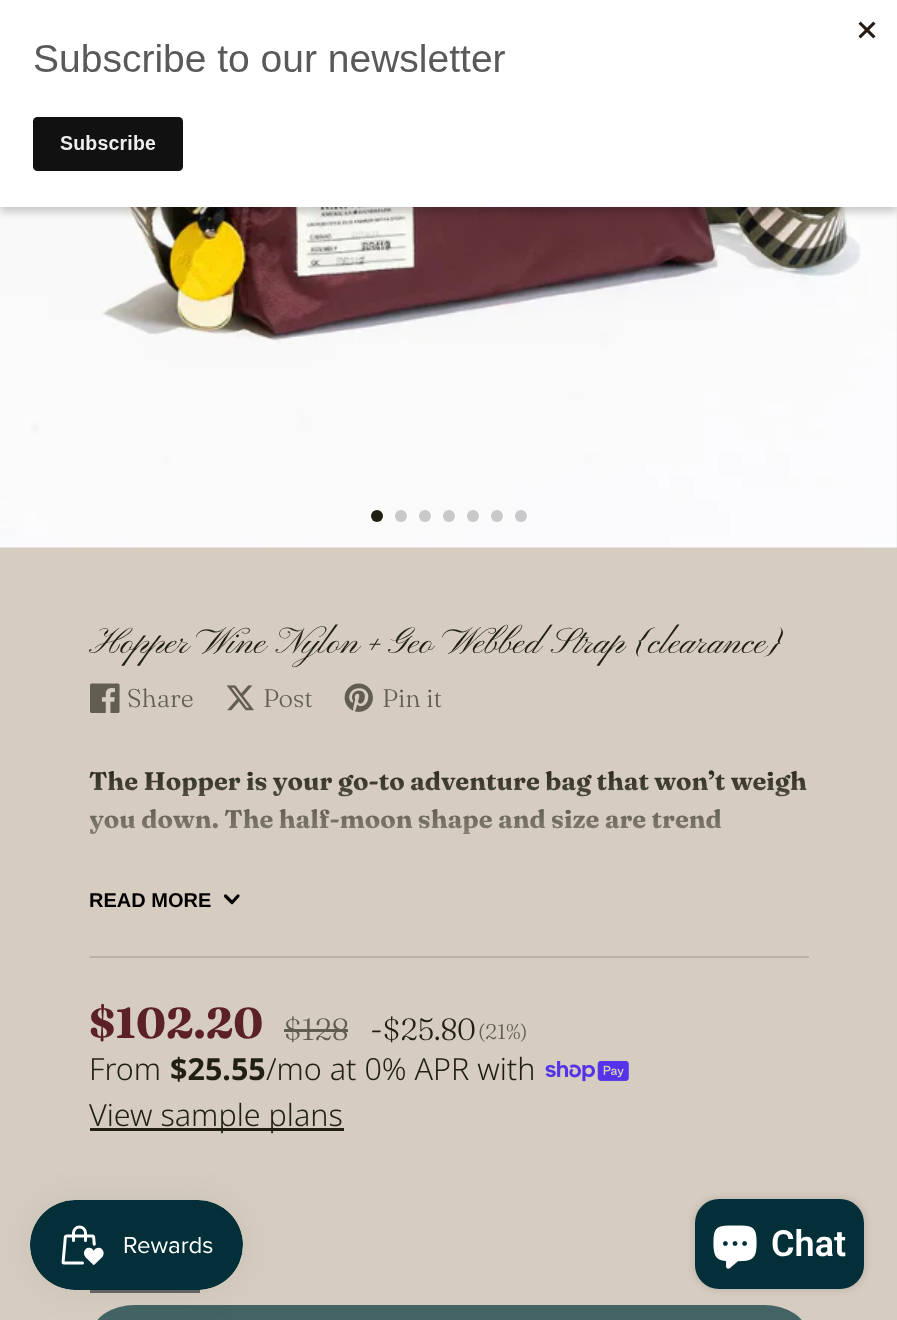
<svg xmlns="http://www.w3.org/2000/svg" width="897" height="1320">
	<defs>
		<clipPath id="clip1"><rect x="90" y="762" width="719" height="150" /></clipPath>
		<linearGradient id="g1" gradientUnits="userSpaceOnUse" x1="449" y1="912" x2="449" y2="762"><stop offset="0.15" stop-color="#D6CCC0" /><stop offset="1" stop-color="#D6CCC0" stop-opacity="0" /></linearGradient>
	</defs>
	<rect width="100%" height="100%" fill="#D6CCC0" />
	<image x="0" y="207" width="897" height="341" href="assets/img2.png" />
	<rect x="0" y="5" width="897" height="207" fill="#000000" fill-opacity="0.2" filter="blur(4.5px)" />
	<rect x="0" y="0" width="897" height="207" fill="#FFFFFF" />
	<image x="32" y="21" width="844" height="150" href="assets/img1.png" />
	<circle cx="377" cy="516" r="6" fill="#201F12" />
	<circle cx="401" cy="516" r="6" fill="#C8C8C8" />
	<circle cx="425" cy="516" r="6" fill="#C8C8C8" />
	<circle cx="449" cy="516" r="6" fill="#C8C8C8" />
	<circle cx="473" cy="516" r="6" fill="#C8C8C8" />
	<circle cx="497" cy="516" r="6" fill="#C8C8C8" />
	<circle cx="521" cy="516" r="6" fill="#C8C8CA" />
	<text x="89" y="653" font-family="Pinyon Script" font-size="36.75" fill="#201F12">Hopper Wine Nylon + Geo Webbed Strap {clearance}</text>
	<image x="90" y="683" width="30" height="30" href="assets/img3.png" />
	<text x="127" y="707" font-family="'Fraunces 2'" font-size="25.5" font-weight="300" fill="#625D51">Share</text>
	<image x="226" y="685" width="28" height="26" href="assets/img4.png" />
	<text x="263" y="707" font-family="'Fraunces 2'" font-size="25.5" font-weight="300" fill="#625D51">Post</text>
	<image x="344" y="683" width="29" height="29" href="assets/img5.png" />
	<text x="382" y="707" font-family="'Fraunces 2'" font-size="25.5" font-weight="300" fill="#625D51">Pin it</text>
	<text x="89" y="790" font-family="'Fraunces 2'" font-size="25.5" font-weight="700" fill="#201F12">The Hopper is your go-to adventure bag that won’t weigh</text>
	<g clip-path="url(#clip1)">
		<text x="89" y="828" font-family="'Fraunces 2'" font-size="25.5" font-weight="700" fill="#201F12">you down. The half-moon shape and size are trend</text>
	</g>
	<rect x="90" y="770" width="717" height="64" fill="url(#g1)" />
	<text x="89" y="907" font-family="Liberation Sans" font-size="20" font-weight="700" fill="#000000">READ MORE</text>
	<path d="M225.5 896L232 902.5L238 896" fill="none" stroke="#000000" stroke-width="3.2" stroke-linecap="round" stroke-linejoin="round" />
	<rect x="90" y="956" width="719" height="2" fill="#BBB2A6" />
	<text x="89" y="1038" font-family="Fraunces" font-size="43" font-weight="700" fill="#5B2126">$102.20</text>
	<text x="284" y="1040" font-family="Fraunces" font-size="30.5" font-weight="300" fill="#625D51">$128</text>
	<rect x="284" y="1029" width="64" height="3" fill="#625D51" />
	<text x="370" y="1040" font-family="Fraunces" font-size="30.5" font-weight="300" fill="#201F12">-$25.80</text>
	<text x="478" y="1039" font-family="'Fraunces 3'" font-size="21" font-weight="300" fill="#625D51">(21%)</text>
	<text x="89" y="1080" font-family="Noto Sans" font-size="30.5" font-weight="300" fill="#201F12">From</text>
	<text x="170" y="1080" font-family="Noto Sans" font-size="30.5" font-weight="700" fill="#201F12">$25.55</text>
	<text x="266" y="1080" font-family="Noto Sans" font-size="30.5" font-weight="300" fill="#201F12">/mo at 0% APR with</text>
	<image x="545" y="1061" width="84" height="21" href="assets/img6.png" />
	<rect x="90" y="1128" width="254" height="3" fill="#201F12" />
	<text x="89" y="1126" font-family="Noto Sans" font-size="30.5" font-weight="300" fill="#201F12">View sample plans</text>
	<rect x="91.5" y="1227.5" width="107" height="64" fill="none" stroke="#666666" stroke-width="3" />
	<rect x="92" y="1305" width="715" height="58" rx="43" fill="#446364" />
	<rect x="30" y="1200" width="213" height="90" rx="45" fill="#000000" fill-opacity="0.05" filter="blur(19px)" />
	<image x="30" y="1200" width="213" height="90" href="assets/img7.png" />
	<rect x="695" y="1199" width="169" height="90" rx="24" fill="#000000" fill-opacity="0.15" filter="blur(4px)" />
	<rect x="695" y="1199" width="169" height="90" rx="24" fill="#022F38" />
	<image x="713" y="1225" width="44" height="44" href="assets/img8.png" />
	<text x="771" y="1256" font-family="Roboto" font-size="36" font-weight="600" fill="#FFFFFF">Chat</text>
</svg>
